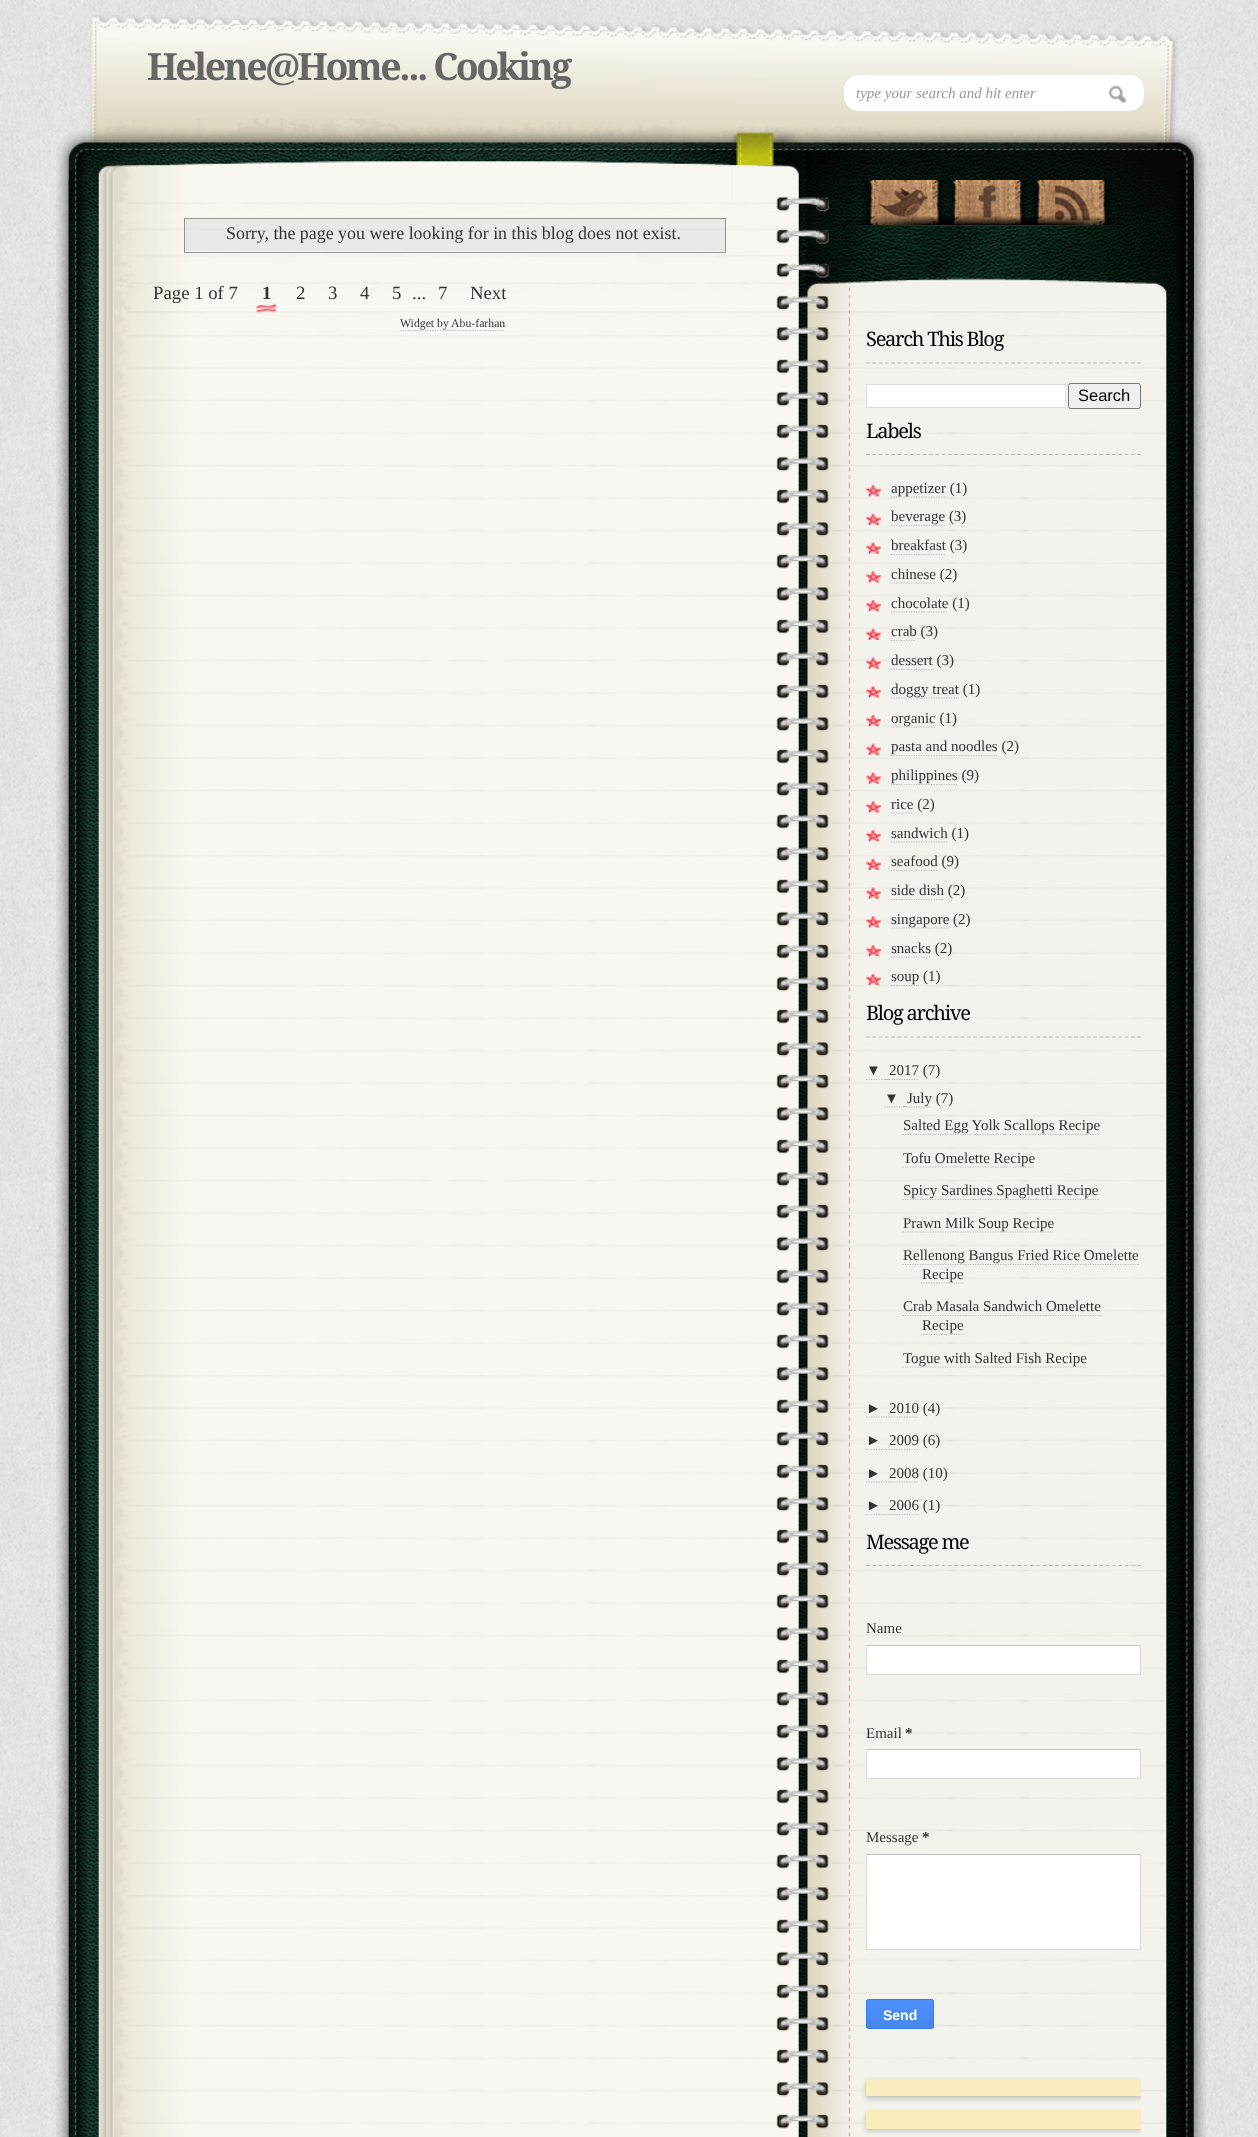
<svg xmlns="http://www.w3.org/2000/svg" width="1258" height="2137">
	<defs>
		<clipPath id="clip1"><rect x="154" y="284" width="366" height="60" /></clipPath>
		<clipPath id="clip2"><rect x="866" y="1999" width="68" height="30" rx="2.5" /></clipPath>
		<linearGradient id="g1" gradientUnits="userSpaceOnUse" x1="900" y1="2000" x2="900" y2="2028"><stop offset="0" stop-color="#4D90FE" /><stop offset="1" stop-color="#4787ED" /></linearGradient>
		<clipPath id="clip3"><rect x="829" y="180" width="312" height="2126" /></clipPath>
	</defs>
	<rect width="100%" height="100%" fill="#FFFFFF" />
	<image x="0" y="0" width="1258" height="2137" href="assets/img1.png" />
	<image x="56" y="15" width="1150" height="165" href="assets/img2.png" />
	<text x="147" y="80" font-family="Droid Serif" font-size="37.5" font-weight="700" letter-spacing="-2.5" fill="#666666">Helene@Home... Cooking</text>
	<rect x="844" y="75" width="300" height="36" rx="15" fill="#FFFFFF" />
	<image x="1108" y="85" width="19" height="18" href="assets/img3.png" />
	<text x="856" y="98" font-family="Liberation Serif" font-size="15" font-style="italic" fill="#999999">type your search and hit enter</text>
	<image x="56" y="180" width="1150" height="1957" href="assets/img4.png" />
	<image x="68" y="180" width="1126" height="140" href="assets/img5.png" />
	<rect x="184.5" y="218.5" width="541" height="34" fill="none" stroke="#000000" stroke-opacity="0.4" />
	<rect x="185" y="219" width="540" height="32" fill="#CCCCCC" fill-opacity="0.32" />
	<text x="226" y="239" font-family="Liberation Serif" font-size="17.9" fill="#333333">Sorry, the page you were looking for in this blog does not exist.</text>
	<g clip-path="url(#clip1)">
		<text x="153" y="299" font-family="Liberation Serif" font-size="18.75" fill="#333333">Page 1 of 7</text>
	</g>
	<text x="262" y="299" font-family="Liberation Serif" font-size="18.75" font-weight="700" fill="#333333">1</text>
	<g font-family="Liberation Serif" font-size="18.75" fill="#333333">
		<text x="296" y="299">2</text>
		<text x="328" y="299">3</text>
		<text x="360" y="299">4</text>
		<text x="392" y="299">5</text>
		<text x="412" y="299">...</text>
		<text x="438" y="299">7</text>
		<text x="470" y="299">Next</text>
	</g>
	<image x="256" y="303" width="22" height="10" href="assets/img6.png" />
	<path d="M400 330.5H505" fill="none" stroke="#BBBBBB" stroke-width="1.2" stroke-dasharray="1.25 1.25" />
	<text x="400" y="327" font-family="Liberation Serif" font-size="11.75" fill="#333333">Widget by Abu-farhan</text>
	<image x="839" y="216" width="290" height="11" href="assets/img7.png" />
	<image x="861" y="180" width="84" height="45" href="assets/img8.png" />
	<image x="945" y="180" width="84" height="45" href="assets/img9.png" />
	<image x="1029" y="180" width="84" height="45" href="assets/img10.png" />
	<text x="993" y="249" font-family="Liberation Serif" font-size="15" fill="#333333">&gt;</text>
	<path d="M866 363H1141" fill="none" stroke="#B9B9B5" stroke-width="1.2" stroke-dasharray="3.75 2.56" />
	<text x="866" y="346" font-family="Droid Serif" font-size="20" letter-spacing="-1.25" fill="#000000">Search This Blog</text>
	<rect x="866.5" y="384.5" width="199" height="23" fill="#FFFFFF" stroke="#DDDDDD" />
	<rect x="1068.5" y="383.5" width="72" height="25" rx="2" fill="#EFEFEF" stroke="#767676" />
	<text x="1078" y="401" font-family="Liberation Sans" font-size="16.5" fill="#000000">Search</text>
	<path d="M866 454.5H1141" fill="none" stroke="#B9B9B5" stroke-width="1.2" stroke-dasharray="3.75 2.56" />
	<text x="866" y="438" font-family="Droid Serif" font-size="20" letter-spacing="-1.25" fill="#000000">Labels</text>
	<image x="866" y="485" width="16" height="12" href="assets/img11.png" />
	<path d="M891 497H945" fill="none" stroke="#BBBBBB" stroke-width="1.2" stroke-dasharray="1.25 1.25" />
	<text x="891" y="493" font-family="Liberation Serif" font-size="15" fill="#333333">appetizer (1)</text>
	<image x="866" y="513" width="16" height="12" href="assets/img12.png" />
	<path d="M891 525.5H945" fill="none" stroke="#BBBBBB" stroke-width="1.2" stroke-dasharray="1.25 1.25" />
	<text x="891" y="521" font-family="Liberation Serif" font-size="15" fill="#333333">beverage (3)</text>
	<image x="866" y="542" width="16" height="12" href="assets/img13.png" />
	<path d="M891 554.5H945" fill="none" stroke="#BBBBBB" stroke-width="1.2" stroke-dasharray="1.25 1.25" />
	<text x="891" y="550" font-family="Liberation Serif" font-size="15" fill="#333333">breakfast (3)</text>
	<image x="866" y="571" width="16" height="12" href="assets/img14.png" />
	<path d="M891 583H935" fill="none" stroke="#BBBBBB" stroke-width="1.2" stroke-dasharray="1.25 1.25" />
	<text x="891" y="579" font-family="Liberation Serif" font-size="15" fill="#333333">chinese (2)</text>
	<image x="866" y="600" width="16" height="12" href="assets/img15.png" />
	<path d="M891 612H947.5" fill="none" stroke="#BBBBBB" stroke-width="1.2" stroke-dasharray="1.25 1.25" />
	<text x="891" y="608" font-family="Liberation Serif" font-size="15" fill="#333333">chocolate (1)</text>
	<image x="866" y="628" width="16" height="12" href="assets/img16.png" />
	<path d="M891 640.5H916" fill="none" stroke="#BBBBBB" stroke-width="1.2" stroke-dasharray="1.25 1.25" />
	<text x="891" y="636" font-family="Liberation Serif" font-size="15" fill="#333333">crab (3)</text>
	<image x="866" y="657" width="16" height="12" href="assets/img17.png" />
	<path d="M891 669.5H932.5" fill="none" stroke="#BBBBBB" stroke-width="1.2" stroke-dasharray="1.25 1.25" />
	<text x="891" y="665" font-family="Liberation Serif" font-size="15" fill="#333333">dessert (3)</text>
	<image x="866" y="686" width="16" height="12" href="assets/img18.png" />
	<path d="M891 698H959" fill="none" stroke="#BBBBBB" stroke-width="1.2" stroke-dasharray="1.25 1.25" />
	<text x="891" y="694" font-family="Liberation Serif" font-size="15" fill="#333333">doggy treat (1)</text>
	<image x="866" y="715" width="16" height="12" href="assets/img19.png" />
	<path d="M891 727H935" fill="none" stroke="#BBBBBB" stroke-width="1.2" stroke-dasharray="1.25 1.25" />
	<text x="891" y="723" font-family="Liberation Serif" font-size="15" fill="#333333">organic (1)</text>
	<image x="866" y="743" width="16" height="12" href="assets/img20.png" />
	<path d="M891 755.5H997.5" fill="none" stroke="#BBBBBB" stroke-width="1.2" stroke-dasharray="1.25 1.25" />
	<text x="891" y="751" font-family="Liberation Serif" font-size="15" fill="#333333">pasta and noodles (2)</text>
	<image x="866" y="772" width="16" height="12" href="assets/img21.png" />
	<path d="M891 784.5H957.5" fill="none" stroke="#BBBBBB" stroke-width="1.2" stroke-dasharray="1.25 1.25" />
	<text x="891" y="780" font-family="Liberation Serif" font-size="15" fill="#333333">philippines (9)</text>
	<image x="866" y="801" width="16" height="12" href="assets/img14.png" />
	<path d="M891 813H912.5" fill="none" stroke="#BBBBBB" stroke-width="1.2" stroke-dasharray="1.25 1.25" />
	<text x="891" y="809" font-family="Liberation Serif" font-size="15" fill="#333333">rice (2)</text>
	<image x="866" y="830" width="16" height="12" href="assets/img15.png" />
	<path d="M891 842H947.5" fill="none" stroke="#BBBBBB" stroke-width="1.2" stroke-dasharray="1.25 1.25" />
	<text x="891" y="838" font-family="Liberation Serif" font-size="15" fill="#333333">sandwich (1)</text>
	<image x="866" y="858" width="16" height="12" href="assets/img22.png" />
	<path d="M891 870.5H937.5" fill="none" stroke="#BBBBBB" stroke-width="1.2" stroke-dasharray="1.25 1.25" />
	<text x="891" y="866" font-family="Liberation Serif" font-size="15" fill="#333333">seafood (9)</text>
	<image x="866" y="887" width="16" height="12" href="assets/img23.png" />
	<path d="M891 899.5H944" fill="none" stroke="#BBBBBB" stroke-width="1.2" stroke-dasharray="1.25 1.25" />
	<text x="891" y="895" font-family="Liberation Serif" font-size="15" fill="#333333">side dish (2)</text>
	<image x="866" y="916" width="16" height="12" href="assets/img24.png" />
	<path d="M891 928H949" fill="none" stroke="#BBBBBB" stroke-width="1.2" stroke-dasharray="1.25 1.25" />
	<text x="891" y="924" font-family="Liberation Serif" font-size="15" fill="#333333">singapore (2)</text>
	<image x="866" y="945" width="16" height="12" href="assets/img25.png" />
	<path d="M891 957H931" fill="none" stroke="#BBBBBB" stroke-width="1.2" stroke-dasharray="1.25 1.25" />
	<text x="891" y="953" font-family="Liberation Serif" font-size="15" fill="#333333">snacks (2)</text>
	<image x="866" y="973" width="16" height="12" href="assets/img26.png" />
	<path d="M891 985.5H919" fill="none" stroke="#BBBBBB" stroke-width="1.2" stroke-dasharray="1.25 1.25" />
	<text x="891" y="981" font-family="Liberation Serif" font-size="15" fill="#333333">soup (1)</text>
	<path d="M866 1037H1141" fill="none" stroke="#B9B9B5" stroke-width="1.2" stroke-dasharray="3.75 2.56" />
	<text x="866" y="1020" font-family="Droid Serif" font-size="20" letter-spacing="-1.25" fill="#000000">Blog archive</text>
	<text x="866" y="1075" font-family="Liberation Sans" font-size="15" fill="#333333">▼</text>
	<path d="M866 1079.5H885" fill="none" stroke="#BBBBBB" stroke-width="1.2" stroke-dasharray="1.25 1.25" />
	<rect x="885" y="1079" width="4" height="1" fill="#BBBBBB" />
	<path d="M889 1079.5H919" fill="none" stroke="#BBBBBB" stroke-width="1.2" stroke-dasharray="1.25 1.25" />
	<text x="889" y="1075" font-family="Liberation Serif" font-size="15" fill="#333333">2017 (7)</text>
	<text x="884" y="1103" font-family="Liberation Sans" font-size="15" fill="#333333">▼</text>
	<path d="M884 1107H902.5" fill="none" stroke="#BBBBBB" stroke-width="1.2" stroke-dasharray="1.25 1.25" />
	<rect x="903" y="1106" width="4" height="1" fill="#BBBBBB" />
	<path d="M906 1107H931" fill="none" stroke="#BBBBBB" stroke-width="1.2" stroke-dasharray="1.25 1.25" />
	<text x="907" y="1103" font-family="Liberation Serif" font-size="15" fill="#333333">July (7)</text>
	<path d="M902.5 1134.5H1100" fill="none" stroke="#BBBBBB" stroke-width="1.2" stroke-dasharray="1.25 1.25" />
	<text x="903" y="1130" font-family="Liberation Serif" font-size="15" fill="#333333">Salted Egg Yolk Scallops Recipe</text>
	<path d="M902.5 1167H1035" fill="none" stroke="#BBBBBB" stroke-width="1.2" stroke-dasharray="1.25 1.25" />
	<text x="903" y="1163" font-family="Liberation Serif" font-size="15" fill="#333333">Tofu Omelette Recipe</text>
	<path d="M902.5 1199.5H1099" fill="none" stroke="#BBBBBB" stroke-width="1.2" stroke-dasharray="1.25 1.25" />
	<text x="903" y="1195" font-family="Liberation Serif" font-size="15" fill="#333333">Spicy Sardines Spaghetti Recipe</text>
	<path d="M902.5 1232H1054" fill="none" stroke="#BBBBBB" stroke-width="1.2" stroke-dasharray="1.25 1.25" />
	<text x="903" y="1228" font-family="Liberation Serif" font-size="15" fill="#333333">Prawn Milk Soup Recipe</text>
	<path d="M902.5 1264.5H1139" fill="none" stroke="#BBBBBB" stroke-width="1.2" stroke-dasharray="1.25 1.25" />
	<text x="903" y="1260" font-family="Liberation Serif" font-size="15" fill="#333333">Rellenong Bangus Fried Rice Omelette</text>
	<path d="M921 1283H964" fill="none" stroke="#BBBBBB" stroke-width="1.2" stroke-dasharray="1.25 1.25" />
	<g font-family="Liberation Serif" font-size="15" fill="#333333">
		<text x="922" y="1279">Recipe</text>
		<text x="903" y="1311">Crab Masala Sandwich Omelette</text>
	</g>
	<path d="M902.5 1315.5H1101" fill="none" stroke="#BBBBBB" stroke-width="1.2" stroke-dasharray="1.25 1.25" />
	<path d="M921 1334.5H964" fill="none" stroke="#BBBBBB" stroke-width="1.2" stroke-dasharray="1.25 1.25" />
	<text x="922" y="1330" font-family="Liberation Serif" font-size="15" fill="#333333">Recipe</text>
	<path d="M902.5 1367H1087.5" fill="none" stroke="#BBBBBB" stroke-width="1.2" stroke-dasharray="1.25 1.25" />
	<text x="903" y="1363" font-family="Liberation Serif" font-size="15" fill="#333333">Togue with Salted Fish Recipe</text>
	<text x="866" y="1413" font-family="Liberation Sans" font-size="15" fill="#333333">►</text>
	<path d="M866 1417H889" fill="none" stroke="#BBBBBB" stroke-width="1.2" stroke-dasharray="1.25 1.25" />
	<path d="M889 1417H919" fill="none" stroke="#BBBBBB" stroke-width="1.2" stroke-dasharray="1.25 1.25" />
	<text x="889" y="1413" font-family="Liberation Serif" font-size="15" fill="#333333">2010 (4)</text>
	<text x="866" y="1445" font-family="Liberation Sans" font-size="15" fill="#333333">►</text>
	<path d="M866 1449.5H889" fill="none" stroke="#BBBBBB" stroke-width="1.2" stroke-dasharray="1.25 1.25" />
	<path d="M889 1449.5H919" fill="none" stroke="#BBBBBB" stroke-width="1.2" stroke-dasharray="1.25 1.25" />
	<text x="889" y="1445" font-family="Liberation Serif" font-size="15" fill="#333333">2009 (6)</text>
	<text x="866" y="1478" font-family="Liberation Sans" font-size="15" fill="#333333">►</text>
	<path d="M866 1482H889" fill="none" stroke="#BBBBBB" stroke-width="1.2" stroke-dasharray="1.25 1.25" />
	<path d="M889 1482H919" fill="none" stroke="#BBBBBB" stroke-width="1.2" stroke-dasharray="1.25 1.25" />
	<text x="889" y="1478" font-family="Liberation Serif" font-size="15" fill="#333333">2008 (10)</text>
	<text x="866" y="1510" font-family="Liberation Sans" font-size="15" fill="#333333">►</text>
	<path d="M866 1514.5H889" fill="none" stroke="#BBBBBB" stroke-width="1.2" stroke-dasharray="1.25 1.25" />
	<path d="M889 1514.5H919" fill="none" stroke="#BBBBBB" stroke-width="1.2" stroke-dasharray="1.25 1.25" />
	<text x="889" y="1510" font-family="Liberation Serif" font-size="15" fill="#333333">2006 (1)</text>
	<path d="M866 1565.5H1141" fill="none" stroke="#B9B9B5" stroke-width="1.2" stroke-dasharray="3.75 2.56" />
	<text x="866" y="1549" font-family="Droid Serif" font-size="20" letter-spacing="-1.25" fill="#000000">Message me</text>
	<text x="866" y="1633" font-family="Liberation Serif" font-size="15" fill="#333333">Name</text>
	<rect x="867" y="1646" width="273" height="28" fill="#FFFFFF" />
	<rect x="866" y="1645" width="275" height="1" fill="#C0C0C0" />
	<rect x="1140" y="1645" width="1" height="30" fill="#D9D9D9" />
	<rect x="866" y="1674" width="275" height="1" fill="#D9D9D9" />
	<rect x="866" y="1645" width="1" height="30" fill="#D9D9D9" />
	<text x="866" y="1738" font-family="Liberation Serif" font-size="15" fill="#333333">Email</text>
	<text x="905" y="1738" font-family="Liberation Serif" font-size="15" font-weight="700" fill="#333333">*</text>
	<rect x="867" y="1750" width="273" height="28" fill="#FFFFFF" />
	<rect x="866" y="1749" width="275" height="1" fill="#C0C0C0" />
	<rect x="1140" y="1749" width="1" height="30" fill="#D9D9D9" />
	<rect x="866" y="1778" width="275" height="1" fill="#D9D9D9" />
	<rect x="866" y="1749" width="1" height="30" fill="#D9D9D9" />
	<text x="866" y="1842" font-family="Liberation Serif" font-size="15" fill="#333333">Message</text>
	<text x="922" y="1842" font-family="Liberation Serif" font-size="15" font-weight="700" fill="#333333">*</text>
	<rect x="867" y="1855" width="273" height="94" fill="#FFFFFF" />
	<rect x="866" y="1854" width="275" height="1" fill="#C0C0C0" />
	<rect x="1140" y="1854" width="1" height="96" fill="#D9D9D9" />
	<rect x="866" y="1949" width="275" height="1" fill="#D9D9D9" />
	<rect x="866" y="1854" width="1" height="96" fill="#D9D9D9" />
	<g clip-path="url(#clip2)">
		<rect x="866" y="2000" width="68" height="28" fill="url(#g1)" />
	</g>
	<rect x="866.5" y="1999.5" width="67" height="29" rx="2" fill="none" stroke="#3079ED" />
	<text x="883" y="2020" font-family="Liberation Sans" font-size="14" font-weight="700" fill="#FFFFFF">Send</text>
	<g clip-path="url(#clip3)">
		<rect x="866" y="2081" width="275" height="18" fill="#000000" fill-opacity="0.2" filter="blur(2.5px)" />
	</g>
	<rect x="866" y="2079" width="275" height="17" fill="#F9EDBE" />
	<g clip-path="url(#clip3)">
		<rect x="866" y="2113" width="275" height="18" fill="#000000" fill-opacity="0.2" filter="blur(2.5px)" />
	</g>
	<rect x="866" y="2110" width="275" height="19" fill="#F9EDBE" />
</svg>
